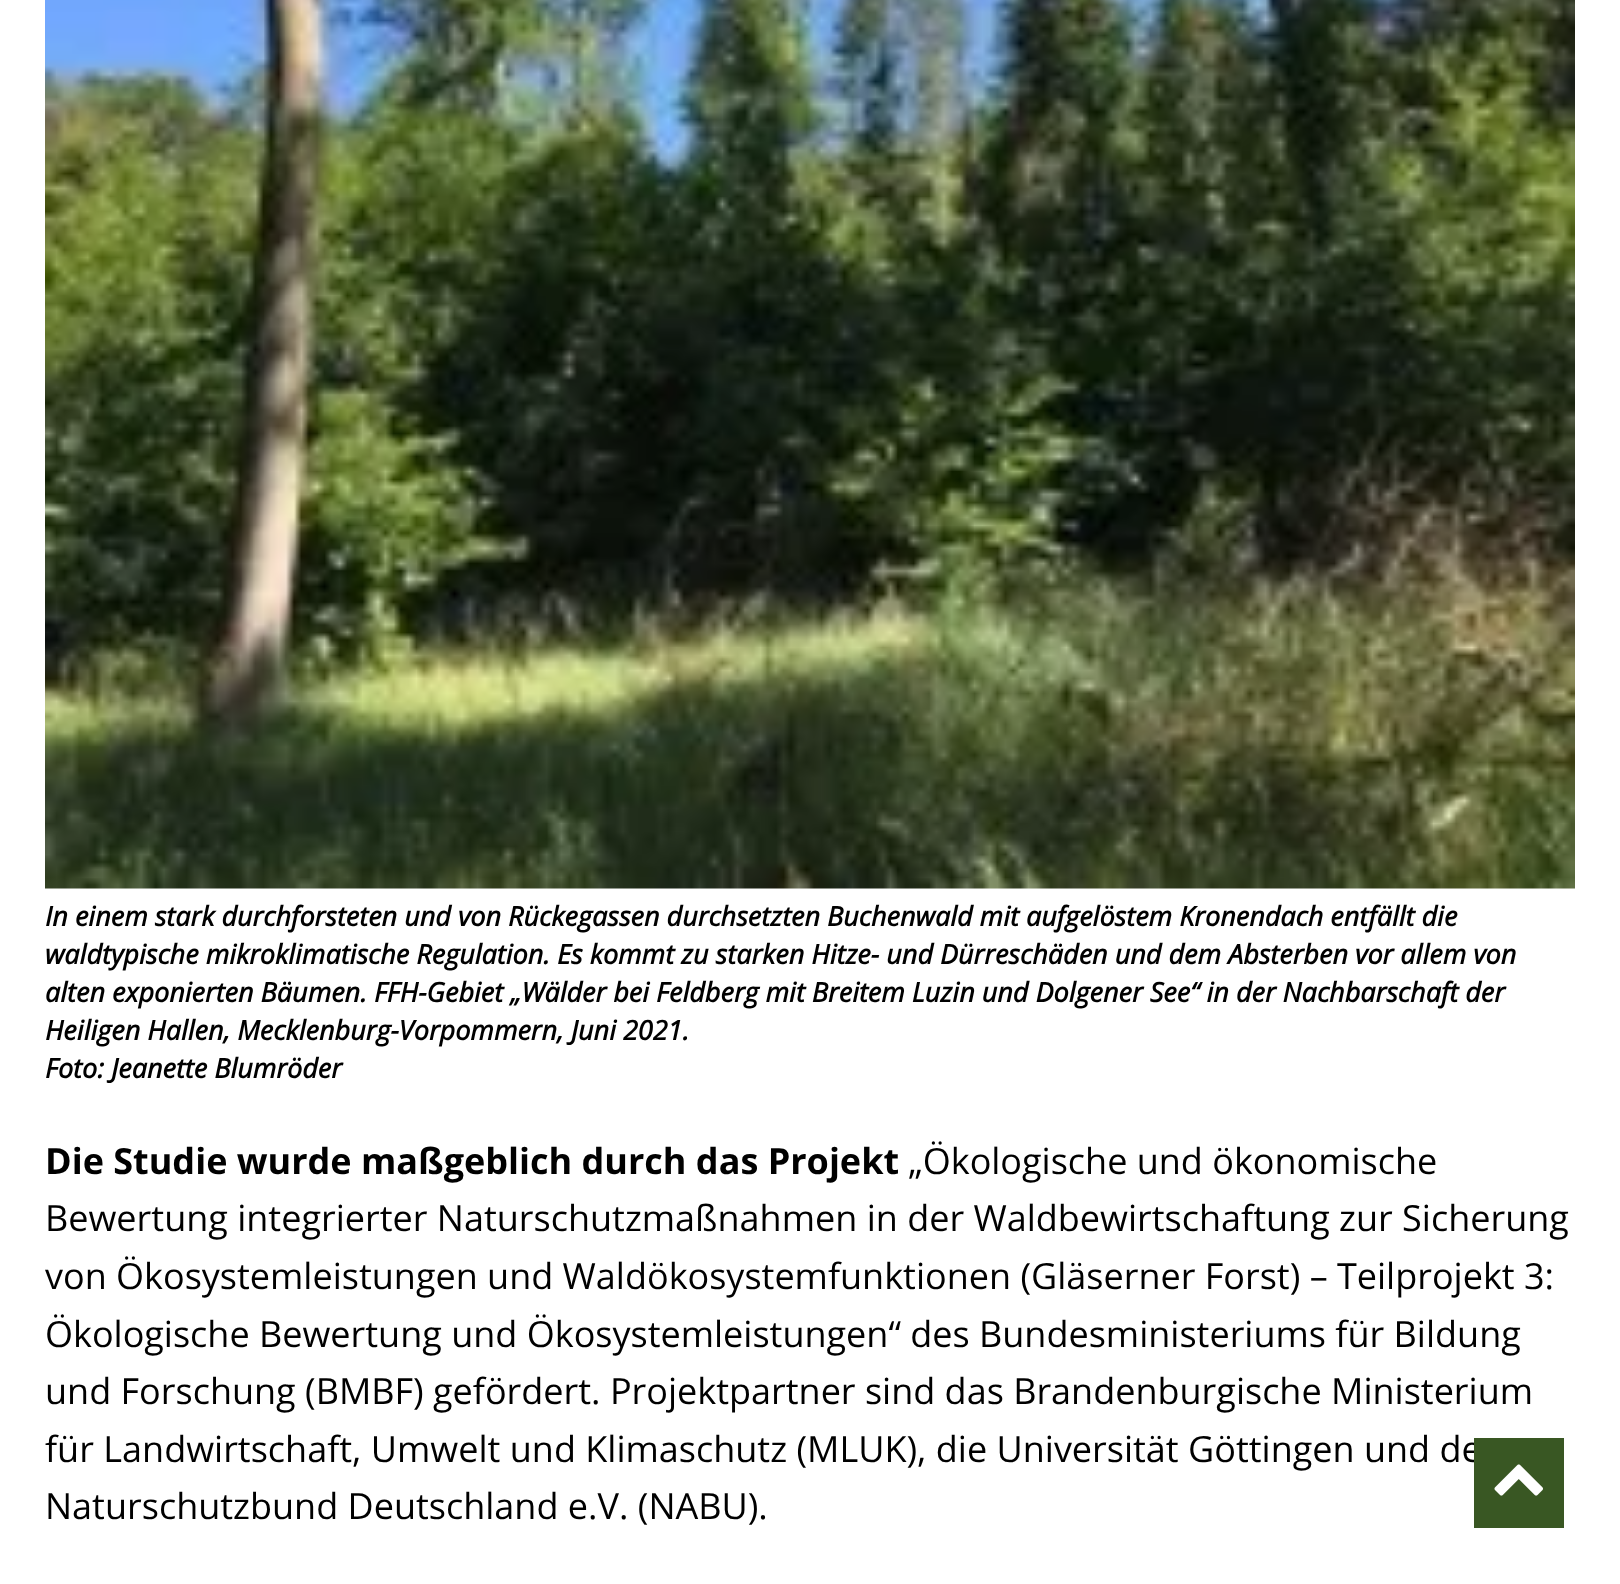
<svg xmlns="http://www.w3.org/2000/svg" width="1620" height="1584">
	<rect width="100%" height="100%" fill="#FFFFFF" />
	<image x="45" y="0" width="1530" height="889" href="assets/img1.png" />
	<g font-family="Open Sans" font-size="27" font-weight="700" font-style="italic" fill="#000000">
		<text x="45" y="926">In einem stark durchforsteten und von Rückegassen durchsetzten Buchenwald mit aufgelöstem Kronendach entfällt die</text>
		<text x="45" y="964">waldtypische mikroklimatische Regulation. Es kommt zu starken Hitze- und Dürreschäden und dem Absterben vor allem von</text>
		<text x="45" y="1002">alten exponierten Bäumen. FFH-Gebiet „Wälder bei Feldberg mit Breitem Luzin und Dolgener See“ in der Nachbarschaft der</text>
		<text x="45" y="1040">Heiligen Hallen, Mecklenburg-Vorpommern, Juni 2021.</text>
		<text x="45" y="1078">Foto: Jeanette Blumröder</text>
	</g>
	<text x="45" y="1174" font-family="Open Sans" font-size="36" font-weight="700" fill="#000000">Die Studie wurde maßgeblich durch das Projekt</text>
	<g font-family="Open Sans" font-size="36" fill="#000000">
		<text x="908" y="1174">„Ökologische und ökonomische</text>
		<text x="45" y="1231">Bewertung integrierter Naturschutzmaßnahmen in der Waldbewirtschaftung zur Sicherung</text>
		<text x="45" y="1289">von Ökosystemleistungen und Waldökosystemfunktionen (Gläserner Forst) – Teilprojekt 3:</text>
		<text x="45" y="1347">Ökologische Bewertung und Ökosystemleistungen“ des Bundesministeriums für Bildung</text>
		<text x="45" y="1404">und Forschung (BMBF) gefördert. Projektpartner sind das Brandenburgische Ministerium</text>
		<text x="45" y="1462">für Landwirtschaft, Umwelt und Klimaschutz (MLUK), die Universität Göttingen und de</text>
		<text x="45" y="1519">Naturschutzbund Deutschland e.V. (NABU).</text>
	</g>
	<rect x="1474" y="1438" width="90" height="90" fill="#395723" />
	<image x="1494" y="1464" width="49" height="32" href="assets/img2.png" />
</svg>
